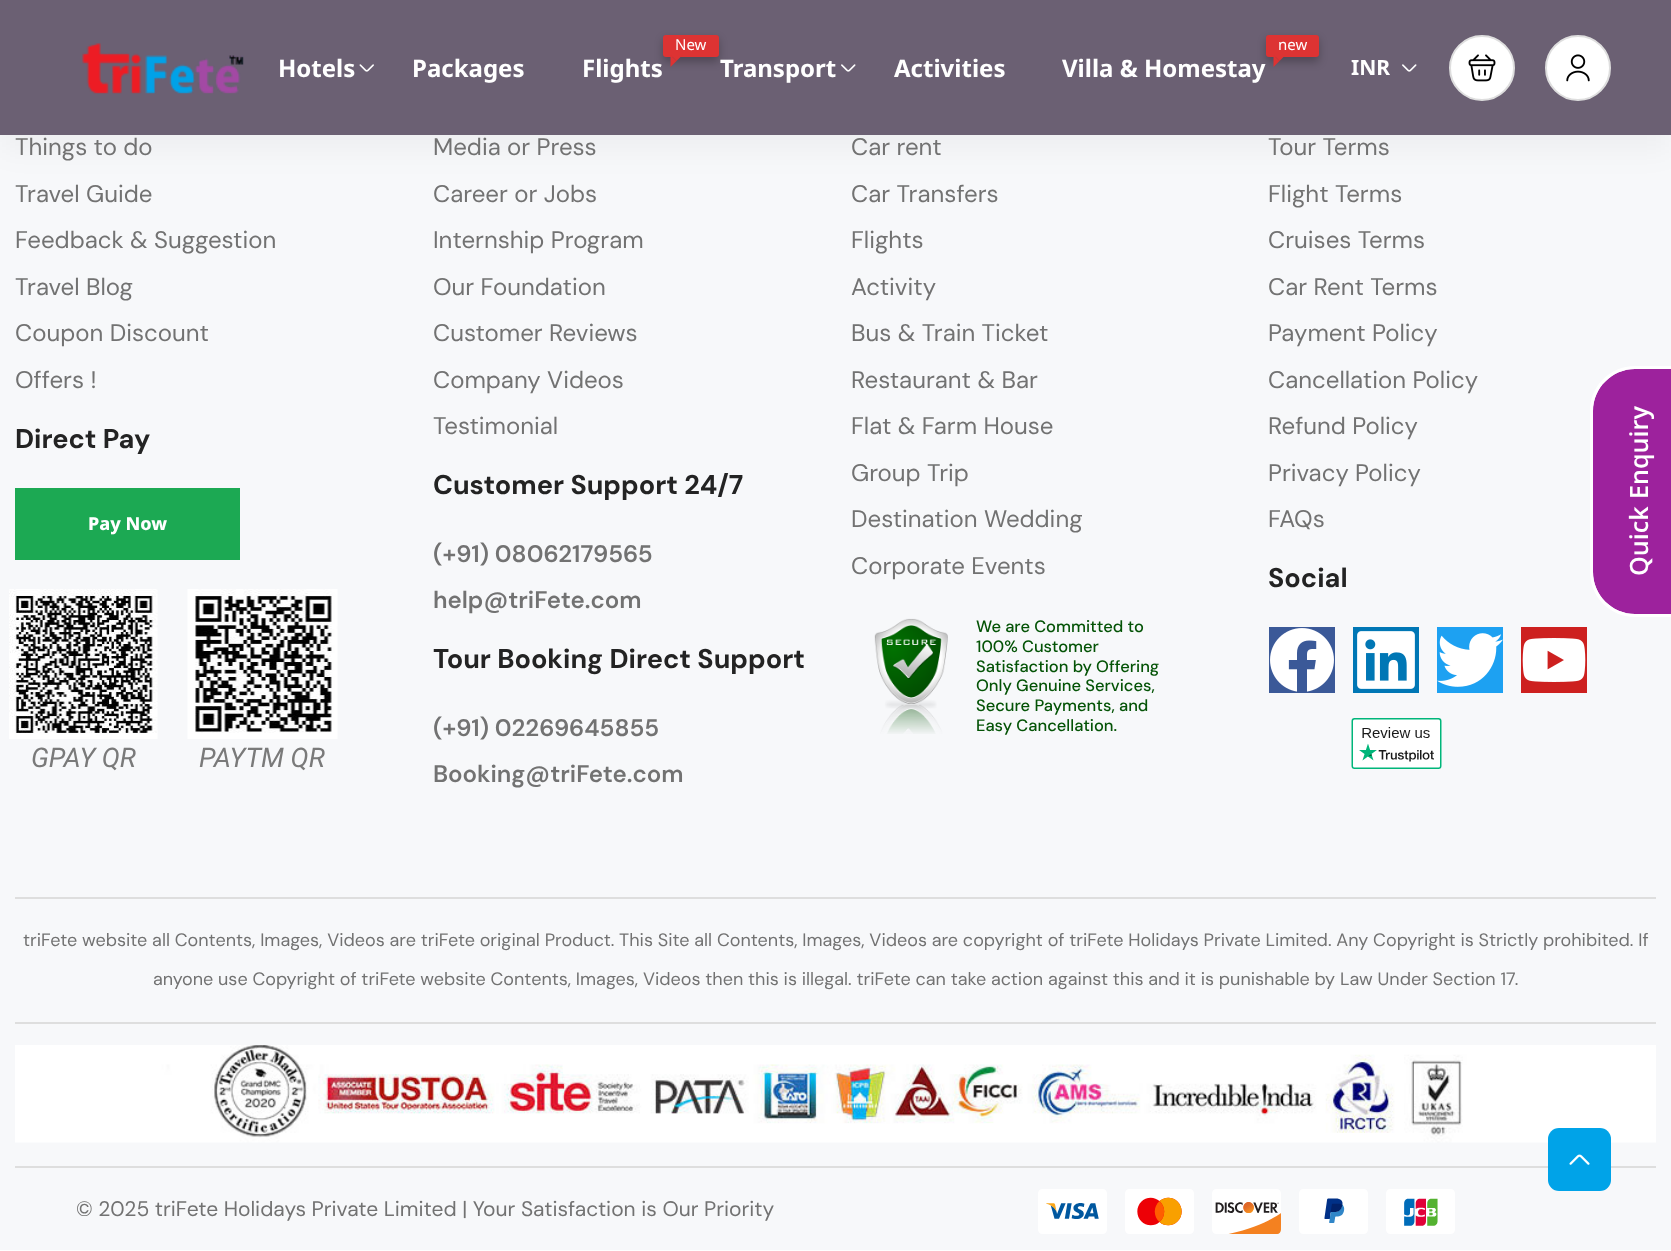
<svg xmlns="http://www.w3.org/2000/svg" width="1671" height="1251">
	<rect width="100%" height="100%" fill="#FFFFFF" />
	<rect x="0" y="135" width="1671" height="1115" fill="#F7F8FA" />
	<rect x="0" y="15" width="1671" height="135" fill="#000000" fill-opacity="0.04" filter="blur(15px)" />
	<rect x="0" y="0" width="1671" height="135" fill="#6B6073" />
	<image x="82" y="43" width="162" height="51" href="assets/img1.png" />
	<text x="278" y="77" font-family="Noto Sans" font-size="24" font-weight="700" fill="#FFFFFF">Hotels</text>
	<image x="359" y="64" width="15" height="8" href="assets/img2.png" />
	<text x="412" y="77" font-family="Noto Sans" font-size="24" font-weight="700" fill="#FFFFFF">Packages</text>
	<rect x="663" y="39" width="56" height="23" rx="3" fill="#000000" fill-opacity="0.25" filter="blur(4px)" />
	<rect x="663" y="35" width="56" height="22" rx="3" fill="#DD3333" />
	<text x="675" y="50" font-family="Noto Sans" font-size="15" fill="#FFFFFF">New</text>
	<path d="M670.5 55H682.5L676.5 61Z" fill="#DD3333" />
	<path d="M670.5 67V55L676.5 61Z" fill="#DD3333" />
	<g font-family="Noto Sans" font-size="24" font-weight="700" fill="#FFFFFF">
		<text x="582" y="77">Flights</text>
		<text x="720" y="77">Transport</text>
	</g>
	<image x="841" y="64" width="15" height="8" href="assets/img3.png" />
	<text x="894" y="77" font-family="Noto Sans" font-size="24" font-weight="700" fill="#FFFFFF">Activities</text>
	<rect x="1266" y="39" width="53" height="23" rx="3" fill="#000000" fill-opacity="0.25" filter="blur(4px)" />
	<rect x="1266" y="35" width="53" height="22" rx="3" fill="#DD3333" />
	<text x="1278" y="50" font-family="Noto Sans" font-size="15" fill="#FFFFFF">new</text>
	<path d="M1273.5 55H1285.5L1279.5 61Z" fill="#DD3333" />
	<path d="M1273.5 67V55L1279.5 61Z" fill="#DD3333" />
	<text x="1062" y="77" font-family="Noto Sans" font-size="24" font-weight="700" fill="#FFFFFF">Villa &amp; Homestay</text>
	<text x="1351" y="75" font-family="Noto Sans" font-size="21" font-weight="700" fill="#FFFFFF">INR</text>
	<image x="1402" y="64" width="15" height="8" href="assets/img3.png" />
	<circle cx="1482" cy="68" r="32" fill="#FFFFFF" stroke="#DEDEDE" stroke-width="2" />
	<image x="1468" y="54" width="28" height="28" href="assets/img4.png" />
	<circle cx="1578" cy="68" r="32" fill="#FFFFFF" stroke="#DEDEDE" stroke-width="2" />
	<image x="1566" y="54" width="24" height="28" href="assets/img5.png" />
	<g font-family="DM Sans" font-size="24" fill="#727272">
		<text x="15" y="155">Things to do</text>
		<text x="15" y="202">Travel Guide</text>
		<text x="15" y="248">Feedback &amp; Suggestion</text>
		<text x="15" y="295">Travel Blog</text>
		<text x="15" y="341">Coupon Discount</text>
		<text x="15" y="388">Offers !</text>
	</g>
	<text x="15" y="448" font-family="DM Sans" font-size="27" font-weight="700" fill="#232323">Direct Pay</text>
	<rect x="15" y="488" width="225" height="72" fill="#1CA953" />
	<text x="88" y="530" font-family="Noto Sans" font-size="18" font-weight="800" fill="#FFFFFF">Pay Now</text>
	<image x="9" y="589" width="149" height="150" href="assets/img6.png" />
	<text x="31" y="767" font-family="Roboto" font-size="27" font-style="italic" fill="#7A7A7A">GPAY QR</text>
	<image x="187" y="589" width="151" height="150" href="assets/img7.png" />
	<text x="199" y="767" font-family="Roboto" font-size="27" font-style="italic" fill="#7A7A7A">PAYTM QR</text>
	<g font-family="DM Sans" font-size="24" fill="#727272">
		<text x="433" y="155">Media or Press</text>
		<text x="433" y="202">Career or Jobs</text>
		<text x="433" y="248">Internship Program</text>
		<text x="433" y="295">Our Foundation</text>
		<text x="433" y="341">Customer Reviews</text>
		<text x="433" y="388">Company Videos</text>
		<text x="433" y="434">Testimonial</text>
	</g>
	<text x="433" y="494" font-family="DM Sans" font-size="27" font-weight="700" fill="#232323">Customer Support 24/7</text>
	<g font-family="DM Sans" font-size="24" font-weight="600" fill="#727272">
		<text x="433" y="562">(+91) 08062179565</text>
		<text x="433" y="608">help@triFete.com</text>
	</g>
	<text x="433" y="668" font-family="DM Sans" font-size="27" font-weight="700" fill="#232323">Tour Booking Direct Support</text>
	<g font-family="DM Sans" font-size="24" font-weight="600" fill="#727272">
		<text x="433" y="736">(+91) 02269645855</text>
		<text x="433" y="782">Booking@triFete.com</text>
	</g>
	<g font-family="DM Sans" font-size="24" fill="#727272">
		<text x="851" y="155">Car rent</text>
		<text x="851" y="202">Car Transfers</text>
		<text x="851" y="248">Flights</text>
		<text x="851" y="295">Activity</text>
		<text x="851" y="341">Bus &amp; Train Ticket</text>
		<text x="851" y="388">Restaurant &amp; Bar</text>
		<text x="851" y="434">Flat &amp; Farm House</text>
		<text x="851" y="481">Group Trip</text>
		<text x="851" y="527">Destination Wedding</text>
		<text x="851" y="574">Corporate Events</text>
	</g>
	<image x="874" y="618" width="74" height="116" href="assets/img8.png" />
	<g font-family="DM Sans" font-size="16.5" font-weight="500" fill="#045306">
		<text x="976" y="632">We are Committed to</text>
		<text x="976" y="652">100% Customer</text>
		<text x="976" y="672">Satisfaction by Offering</text>
		<text x="976" y="691">Only Genuine Services,</text>
		<text x="976" y="711">Secure Payments, and</text>
		<text x="976" y="731">Easy Cancellation.</text>
	</g>
	<g font-family="DM Sans" font-size="24" fill="#727272">
		<text x="1268" y="155">Tour Terms</text>
		<text x="1268" y="202">Flight Terms</text>
		<text x="1268" y="248">Cruises Terms</text>
		<text x="1268" y="295">Car Rent Terms</text>
		<text x="1268" y="341">Payment Policy</text>
		<text x="1268" y="388">Cancellation Policy</text>
		<text x="1268" y="434">Refund Policy</text>
		<text x="1268" y="481">Privacy Policy</text>
		<text x="1268" y="527">FAQs</text>
	</g>
	<text x="1268" y="587" font-family="DM Sans" font-size="27" font-weight="700" fill="#232323">Social</text>
	<rect x="1269" y="627" width="66" height="66" fill="#3B5998" />
	<image x="1270" y="628" width="64" height="64" href="assets/img9.png" />
	<rect x="1353" y="627" width="66" height="66" fill="#0077B5" />
	<image x="1357" y="631" width="58" height="58" href="assets/img10.png" />
	<rect x="1437" y="627" width="66" height="66" fill="#1DA1F2" />
	<image x="1437" y="633" width="66" height="54" href="assets/img11.png" />
	<rect x="1521" y="627" width="66" height="66" fill="#CD201F" />
	<image x="1522" y="638" width="64" height="44" href="assets/img12.png" />
	<image x="1351" y="718" width="91" height="51" href="assets/img13.png" />
	<rect x="15" y="897" width="1641" height="2" fill="#DEDEDE" />
	<g font-family="DM Sans" font-size="18" fill="#727272">
		<text x="23" y="946">triFete website all Contents, Images, Videos are triFete original Product. This Site all Contents, Images, Videos are copyright of triFete Holidays Private Limited. Any Copyright is Strictly prohibited. If</text>
		<text x="153" y="985">anyone use Copyright of triFete website Contents, Images, Videos then this is illegal. triFete can take action against this and it is punishable by Law Under Section 17.</text>
	</g>
	<rect x="15" y="1022" width="1641" height="2" fill="#DEDEDE" />
	<image x="15" y="1045" width="1641" height="98" href="assets/img14.png" />
	<rect x="15" y="1166" width="1641" height="2" fill="#DEDEDE" />
	<text x="76" y="1216" font-family="DM Sans" font-size="21" fill="#727272">© 2025 triFete Holidays Private Limited | Your Satisfaction is Our Priority</text>
	<image x="1038" y="1189" width="417" height="45" href="assets/img15.png" />
	<path d="M1593 572V411C1593 388 1612 369 1635 369H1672V614H1635C1612 614 1593 595 1593 572Z" fill="#9D229D" />
	<path d="M1590 572V411C1590 386 1610 366 1635 366H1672V617H1635C1610 617 1590 597 1590 572ZM1593 572V411C1593 388 1612 369 1635 369H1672V614H1635C1612 614 1593 595 1593 572Z" fill="#FFFFFF" fill-rule="evenodd" />
	<text x="1648" y="576" transform="rotate(-90 1648 576)" font-family="Khula" font-size="27" font-weight="600" fill="#FFFFFF">Quick Enquiry</text>
	<rect x="1548" y="1128" width="63" height="63" rx="11" fill="#00A3E8" />
	<image x="1569" y="1154" width="21" height="11" href="assets/img16.png" />
</svg>
